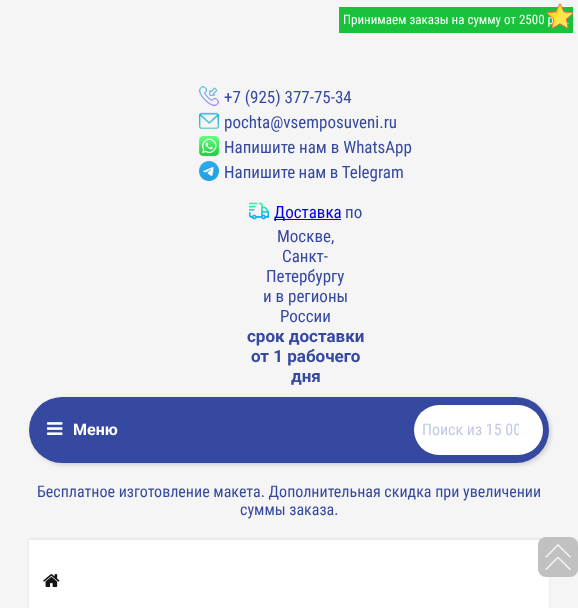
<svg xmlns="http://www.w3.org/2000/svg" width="578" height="608">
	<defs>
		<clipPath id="clip1"><rect x="422" y="420" width="97" height="19" /></clipPath>
	</defs>
	<rect width="100%" height="100%" fill="#F5F5F5" />
	<rect x="339" y="7" width="234" height="26" fill="#1AC13B" />
	<g font-family="Roboto Condensed" font-size="13" fill="#FFFFFF">
		<text x="343" y="24">Принимаем заказы на сумму от 2500 р</text>
		<text x="566" y="24">.</text>
	</g>
	<image x="547" y="3" width="26" height="26" href="assets/img1.png" />
	<image x="199" y="86" width="20" height="20" href="assets/img2.png" />
	<text x="224" y="103" font-family="Roboto Condensed" font-size="17" fill="#3649A1">+7 (925) 377-75-34</text>
	<image x="199" y="112" width="20" height="18" href="assets/img3.png" />
	<text x="224" y="128" font-family="Roboto Condensed" font-size="17" fill="#3649A1">pochta@vsemposuveni.ru</text>
	<image x="199" y="136" width="20" height="20" href="assets/img4.png" />
	<text x="224" y="153" font-family="Roboto Condensed" font-size="17" fill="#3649A1">Напишите нам в WhatsApp</text>
	<image x="199" y="161" width="20" height="20" href="assets/img5.png" />
	<text x="224" y="178" word-spacing="-0.5" font-family="Roboto Condensed" font-size="17" fill="#3649A1">Напишите нам в Telegram</text>
	<image x="249" y="202" width="20" height="18" href="assets/img6.png" />
	<rect x="274" y="219" width="67" height="1" fill="#0000EE" />
	<text x="274" y="218" font-family="Roboto Condensed" font-size="17" fill="#0000EE">Доставка</text>
	<g font-family="Roboto Condensed" font-size="17" fill="#3649A1">
		<text x="345" y="218">по</text>
		<text x="277" y="242">Москве,</text>
		<text x="282" y="262">Санкт-</text>
		<text x="266" y="282">Петербургу</text>
		<text x="263" y="302">и в регионы</text>
		<text x="280" y="322">России</text>
	</g>
	<g font-family="Roboto" font-size="17" font-weight="700" fill="#3649A1">
		<text x="247" y="342">срок доставки</text>
		<text x="251" y="362">от 1 рабочего</text>
		<text x="291" y="382">дня</text>
	</g>
	<rect x="31" y="399" width="520" height="66" rx="33" fill="#000000" fill-opacity="0.15" filter="blur(2px)" />
	<rect x="29" y="397" width="520" height="66" rx="33" fill="#3649A1" />
	<image x="47" y="422" width="16" height="13" href="assets/img7.png" />
	<text x="73" y="435" font-family="Roboto" font-size="16" font-weight="700" fill="#FFFFFF">Меню</text>
	<rect x="414" y="405" width="129" height="50" rx="25" fill="#FFFFFF" />
	<g clip-path="url(#clip1)">
		<text x="422" y="435" font-family="Roboto Condensed" font-size="16" fill="#C3C8E3">Поиск из 15 00</text>
	</g>
	<g font-family="Roboto Condensed" font-size="16" fill="#3649A1">
		<text x="37" y="497">Бесплатное изготовление макета. Дополнительная скидка при увеличении</text>
		<text x="240" y="515">суммы заказа.</text>
	</g>
	<rect x="29" y="539" width="520" height="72" fill="#000000" fill-opacity="0.1" filter="blur(1px)" />
	<rect x="29" y="540" width="520" height="68" fill="#FFFFFF" />
	<rect x="29" y="539" width="520" height="1" fill="#EAEAEA" />
	<image x="43" y="574" width="17" height="13" href="assets/img8.png" />
	<rect x="538" y="537" width="40" height="40" rx="8" fill="#C1C1C1" />
	<image x="545" y="544" width="26" height="26" href="assets/img9.png" />
</svg>
